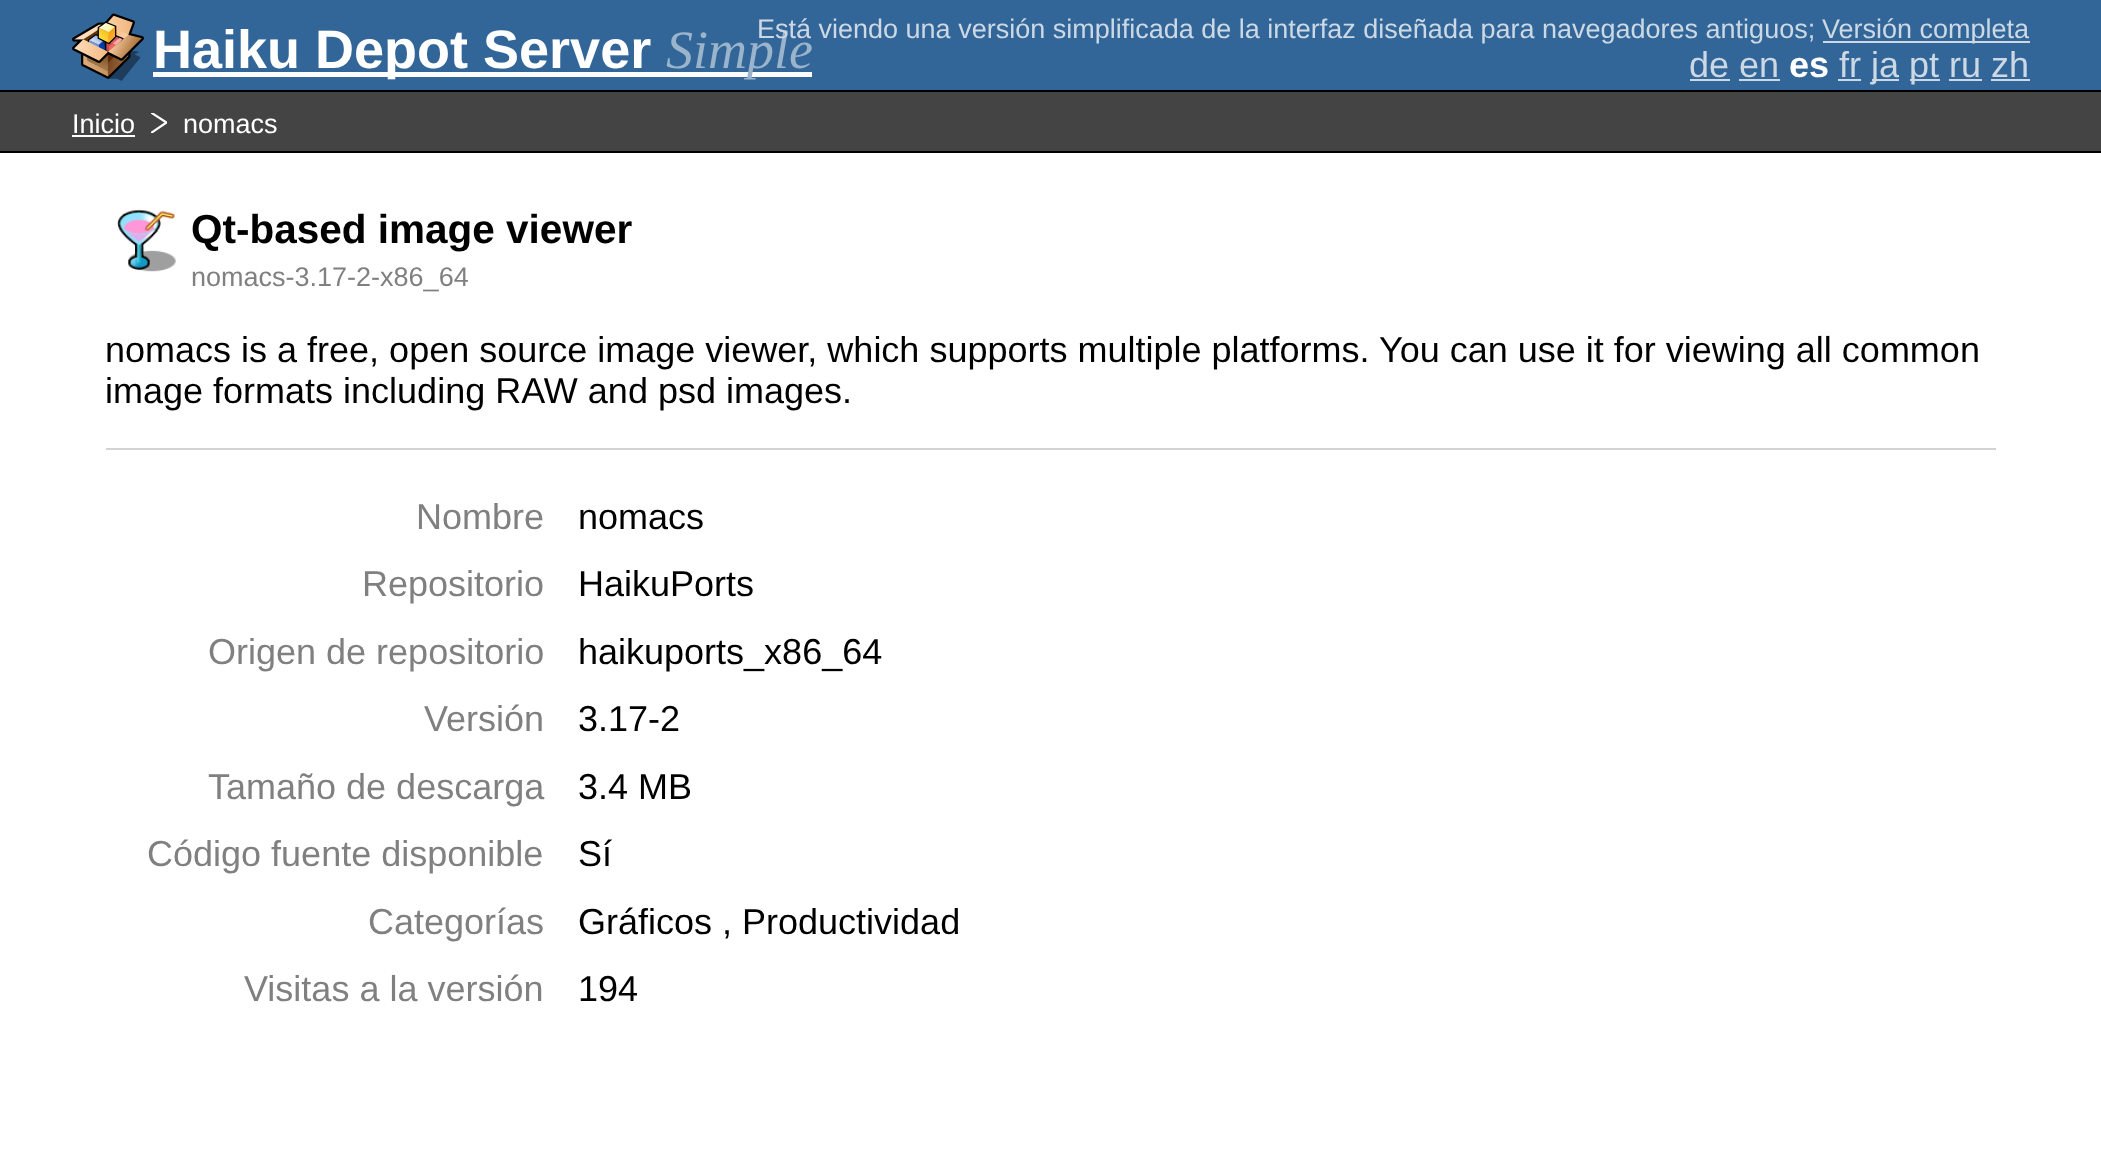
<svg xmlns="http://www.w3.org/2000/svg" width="2101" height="1149">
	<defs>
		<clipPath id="clip1"><rect x="151" y="113" width="16" height="20" /></clipPath>
	</defs>
	<rect width="100%" height="100%" fill="#FFFFFF" />
	<rect x="0" y="0" width="2101" height="90" fill="#336698" />
	<rect x="0" y="90" width="2101" height="2" fill="#000000" />
	<image x="72" y="13" width="72" height="68" href="assets/img1.png" />
	<rect x="153" y="72" width="659" height="5" fill="#FFFFFF" />
	<text x="153" y="68" font-family="Liberation Sans" font-size="54" font-weight="700" fill="#FFFFFF">Haiku Depot Server</text>
	<text x="666" y="68" font-family="Liberation Serif" font-size="54" font-style="italic" fill="#9AB4CC">Simple</text>
	<text x="757" y="38" font-family="Liberation Sans" font-size="27" fill="#CCD9E5">Está viendo una versión simplificada de la interfaz diseñada para navegadores antiguos;</text>
	<rect x="1823" y="41" width="207" height="2" fill="#CCD9E5" />
	<text x="1822" y="38" font-family="Liberation Sans" font-size="27" fill="#CCD9E5">Versión completa</text>
	<text x="1689" y="77" font-family="Liberation Sans" font-size="36" fill="#CCD9E5">de en</text>
	<rect x="1690" y="79" width="40" height="2" fill="#CCD9E5" />
	<rect x="1739" y="79" width="41" height="2" fill="#CCD9E5" />
	<text x="1789" y="77" font-family="Liberation Sans" font-size="36" font-weight="700" fill="#FFFFFF">es</text>
	<text x="1839" y="77" font-family="Liberation Sans" font-size="36" fill="#CCD9E5">fr</text>
	<rect x="1838" y="79" width="23" height="2" fill="#CCD9E5" />
	<rect x="1872" y="79" width="27" height="2" fill="#CCD9E5" />
	<text x="1871" y="77" font-family="Liberation Sans" font-size="36" fill="#CCD9E5">ja</text>
	<rect x="1910" y="79" width="30" height="2" fill="#CCD9E5" />
	<text x="1909" y="77" font-family="Liberation Sans" font-size="36" fill="#CCD9E5">pt</text>
	<rect x="1949" y="79" width="33" height="2" fill="#CCD9E5" />
	<text x="1949" y="77" font-family="Liberation Sans" font-size="36" fill="#CCD9E5">ru zh</text>
	<rect x="1991" y="79" width="39" height="2" fill="#CCD9E5" />
	<rect x="0" y="92" width="2101" height="59" fill="#444444" />
	<rect x="0" y="151" width="2101" height="2" fill="#000000" />
	<text x="72" y="133" font-family="Liberation Sans" font-size="27" fill="#FFFFFF">Inicio</text>
	<rect x="72" y="135" width="63" height="2" fill="#FFFFFF" />
	<text x="183" y="133" font-family="Liberation Sans" font-size="27" fill="#FFFFFF">nomacs</text>
	<g clip-path="url(#clip1)">
		<path d="M151 133L166.5 122.5L151 112.5" fill="none" stroke="#FFFFFF" stroke-width="2.2" />
	</g>
	<image x="117" y="209" width="59" height="63" href="assets/img2.png" />
	<text x="191" y="243" font-family="Liberation Sans" font-size="40.5" font-weight="700" fill="#000000">Qt-based image viewer</text>
	<text x="191" y="286" font-family="Liberation Sans" font-size="27" fill="#808080">nomacs-3.17-2-x86_64</text>
	<g font-family="Liberation Sans" font-size="36" fill="#000000">
		<text x="105" y="362">nomacs is a free, open source image viewer, which supports multiple platforms. You can use it for viewing all common</text>
		<text x="105" y="403">image formats including RAW and psd images.</text>
	</g>
	<rect x="106" y="448" width="1890" height="2" fill="#D3D3D3" />
	<text x="416" y="529" font-family="Liberation Sans" font-size="36" fill="#808080">Nombre</text>
	<text x="578" y="529" font-family="Liberation Sans" font-size="36" fill="#000000">nomacs</text>
	<text x="362" y="596" font-family="Liberation Sans" font-size="36" fill="#808080">Repositorio</text>
	<text x="578" y="596" font-family="Liberation Sans" font-size="36" fill="#000000">HaikuPorts</text>
	<text x="208" y="664" font-family="Liberation Sans" font-size="36" fill="#808080">Origen de repositorio</text>
	<text x="578" y="664" font-family="Liberation Sans" font-size="36" fill="#000000">haikuports_x86_64</text>
	<text x="424" y="731" font-family="Liberation Sans" font-size="36" fill="#808080">Versión</text>
	<text x="578" y="731" font-family="Liberation Sans" font-size="36" fill="#000000">3.17-2</text>
	<text x="208" y="799" font-family="Liberation Sans" font-size="36" fill="#808080">Tamaño de descarga</text>
	<text x="578" y="799" font-family="Liberation Sans" font-size="36" fill="#000000">3.4 MB</text>
	<text x="147" y="866" font-family="Liberation Sans" font-size="36" fill="#808080">Código fuente disponible</text>
	<text x="578" y="866" font-family="Liberation Sans" font-size="36" fill="#000000">Sí</text>
	<text x="368" y="934" font-family="Liberation Sans" font-size="36" fill="#808080">Categorías</text>
	<text x="578" y="934" font-family="Liberation Sans" font-size="36" fill="#000000">Gráficos , Productividad</text>
	<text x="244" y="1001" font-family="Liberation Sans" font-size="36" fill="#808080">Visitas a la versión</text>
	<text x="578" y="1001" font-family="Liberation Sans" font-size="36" fill="#000000">194</text>
</svg>
